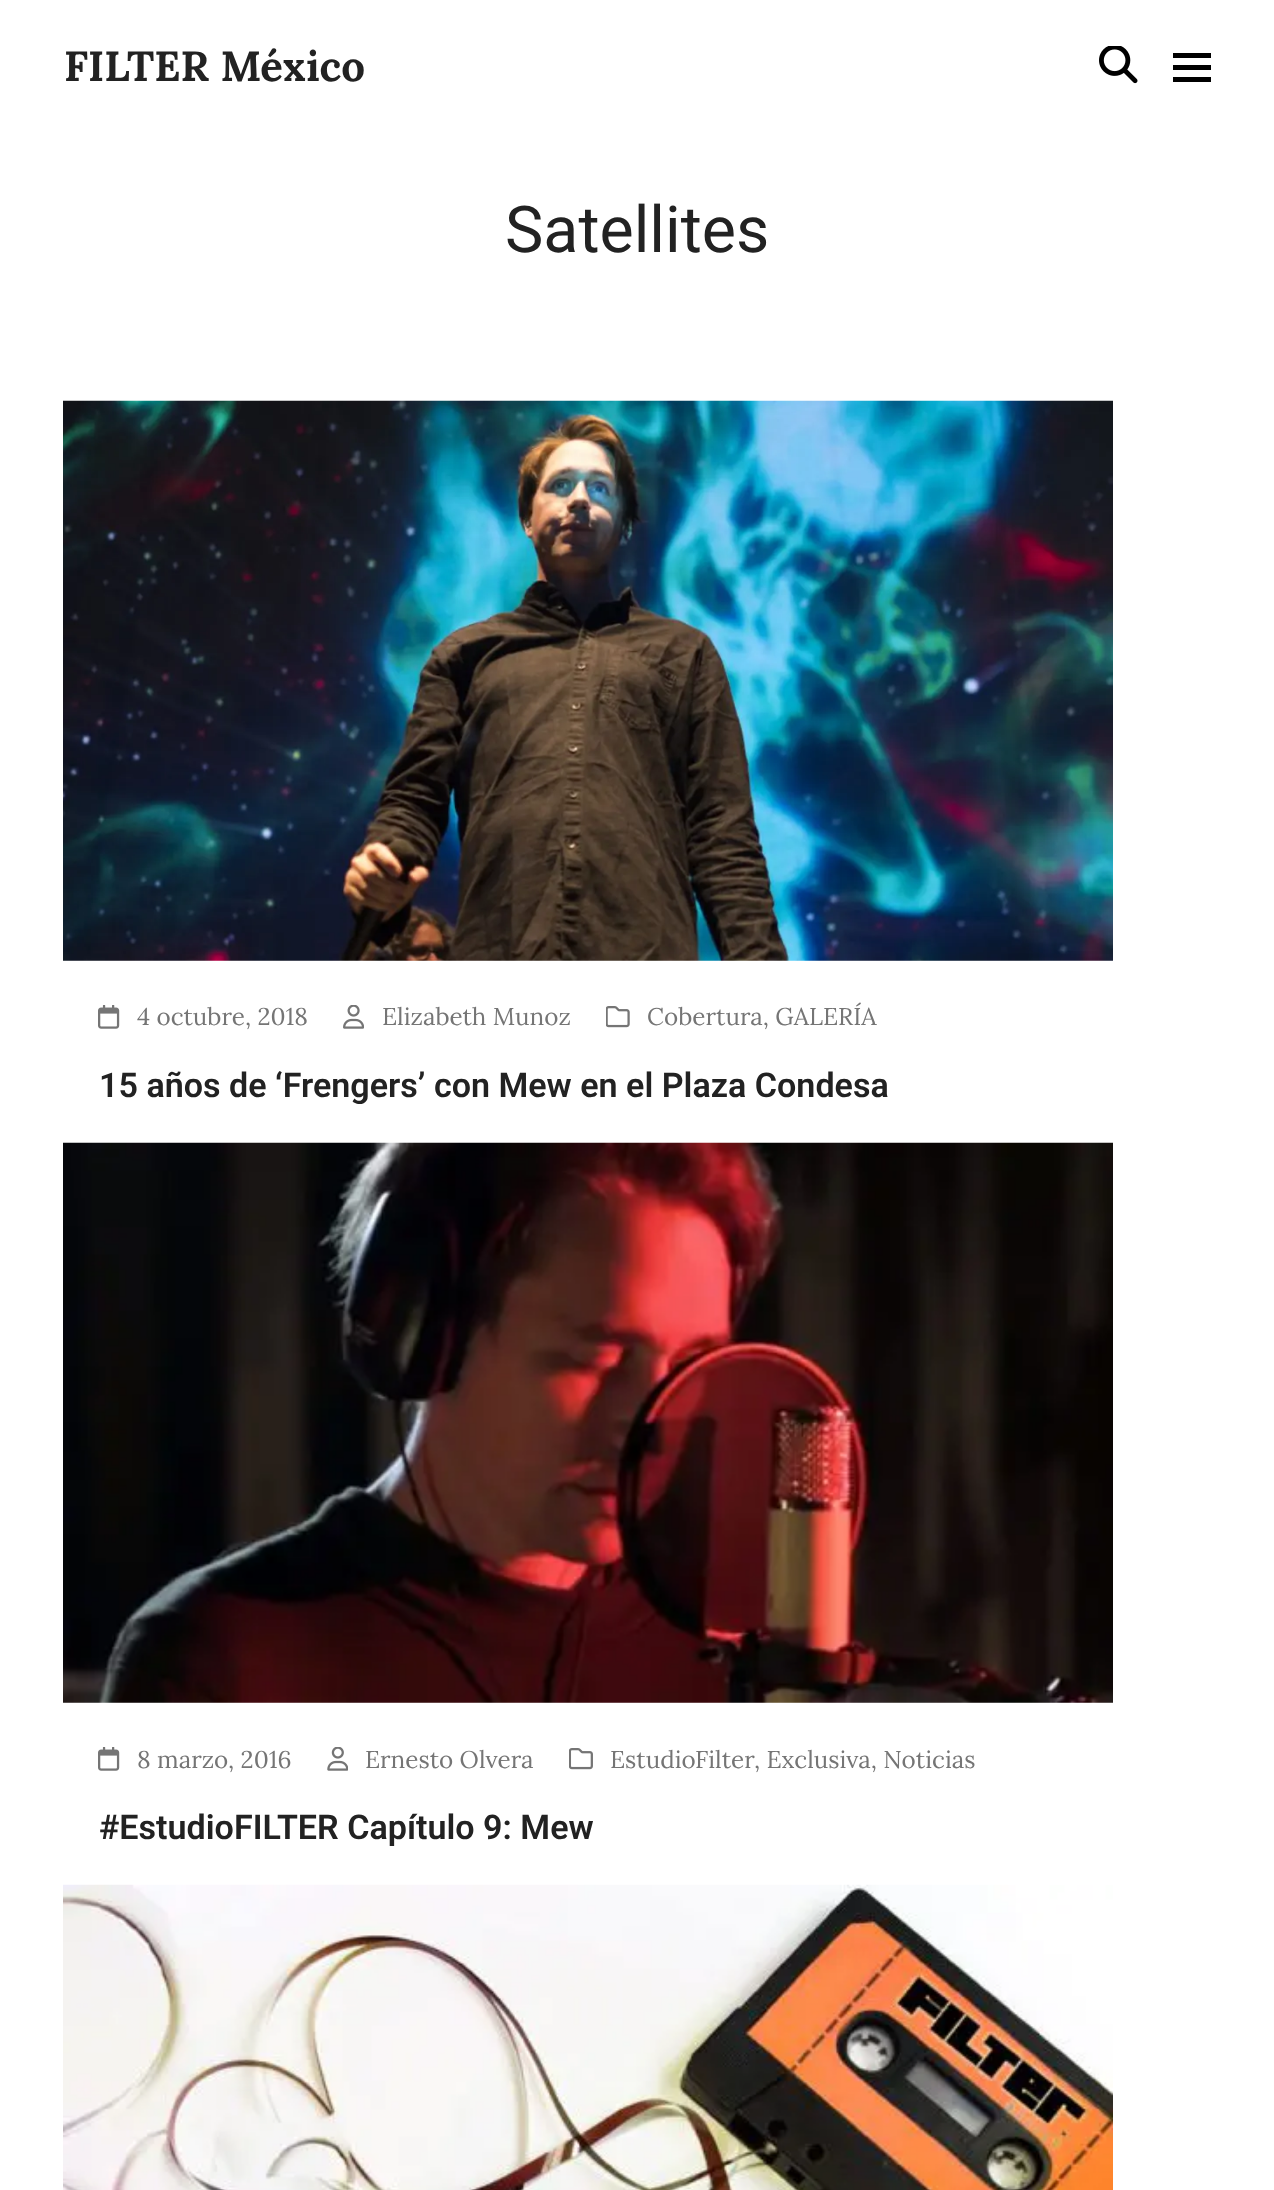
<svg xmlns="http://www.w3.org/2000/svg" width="1274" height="2190">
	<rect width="100%" height="100%" fill="#FFFFFF" />
	<text x="64" y="81" font-family="Lora" font-size="42" font-weight="700" fill="#222222">FILTER México</text>
	<image x="1099" y="46" width="39" height="38" href="assets/img1.png" />
	<rect x="1173" y="65" width="38" height="5" fill="#000000" />
	<rect x="1173" y="53" width="38" height="5" fill="#000000" />
	<rect x="1173" y="77" width="38" height="5" fill="#000000" />
	<text x="505" y="252" font-family="Roboto" font-size="64.5" fill="#222222">Satellites</text>
	<image x="63" y="400" width="1050" height="561" href="assets/img2.png" />
	<image x="98" y="1005" width="22" height="24" href="assets/img3.png" />
	<text x="137" y="1025" font-family="Lora" font-size="24.25" fill="#757575">4 octubre, 2018</text>
	<image x="343" y="1005" width="21" height="24" href="assets/img4.png" />
	<text x="382" y="1025" font-family="Lora" font-size="24.25" fill="#757575">Elizabeth Munoz</text>
	<image x="606" y="1006" width="24" height="22" href="assets/img5.png" />
	<text x="647" y="1025" font-family="Lora" font-size="24.25" fill="#757575">Cobertura, GALERÍA</text>
	<text x="99" y="1097" font-family="Roboto" font-size="34.1" font-weight="600" fill="#222222">15 años de ‘Frengers’ con Mew en el Plaza Condesa</text>
	<image x="63" y="1142" width="1050" height="561" href="assets/img6.png" />
	<image x="98" y="1747" width="22" height="24" href="assets/img3.png" />
	<text x="137" y="1768" font-family="Lora" font-size="24.25" fill="#757575">8 marzo, 2016</text>
	<image x="327" y="1747" width="21" height="24" href="assets/img7.png" />
	<text x="365" y="1768" font-family="Lora" font-size="24.25" fill="#757575">Ernesto Olvera</text>
	<image x="569" y="1748" width="24" height="22" href="assets/img8.png" />
	<g font-family="Lora" font-size="24.25" fill="#757575">
		<text x="610" y="1768">EstudioFilter</text>
		<text x="754" y="1768">, Exclusiva, Noticias</text>
	</g>
	<text x="99" y="1839" font-family="Roboto" font-size="34.1" font-weight="600" fill="#222222">#EstudioFILTER Capítulo 9: Mew</text>
	<image x="63" y="1884" width="1050" height="306" href="assets/img9.png" />
</svg>
